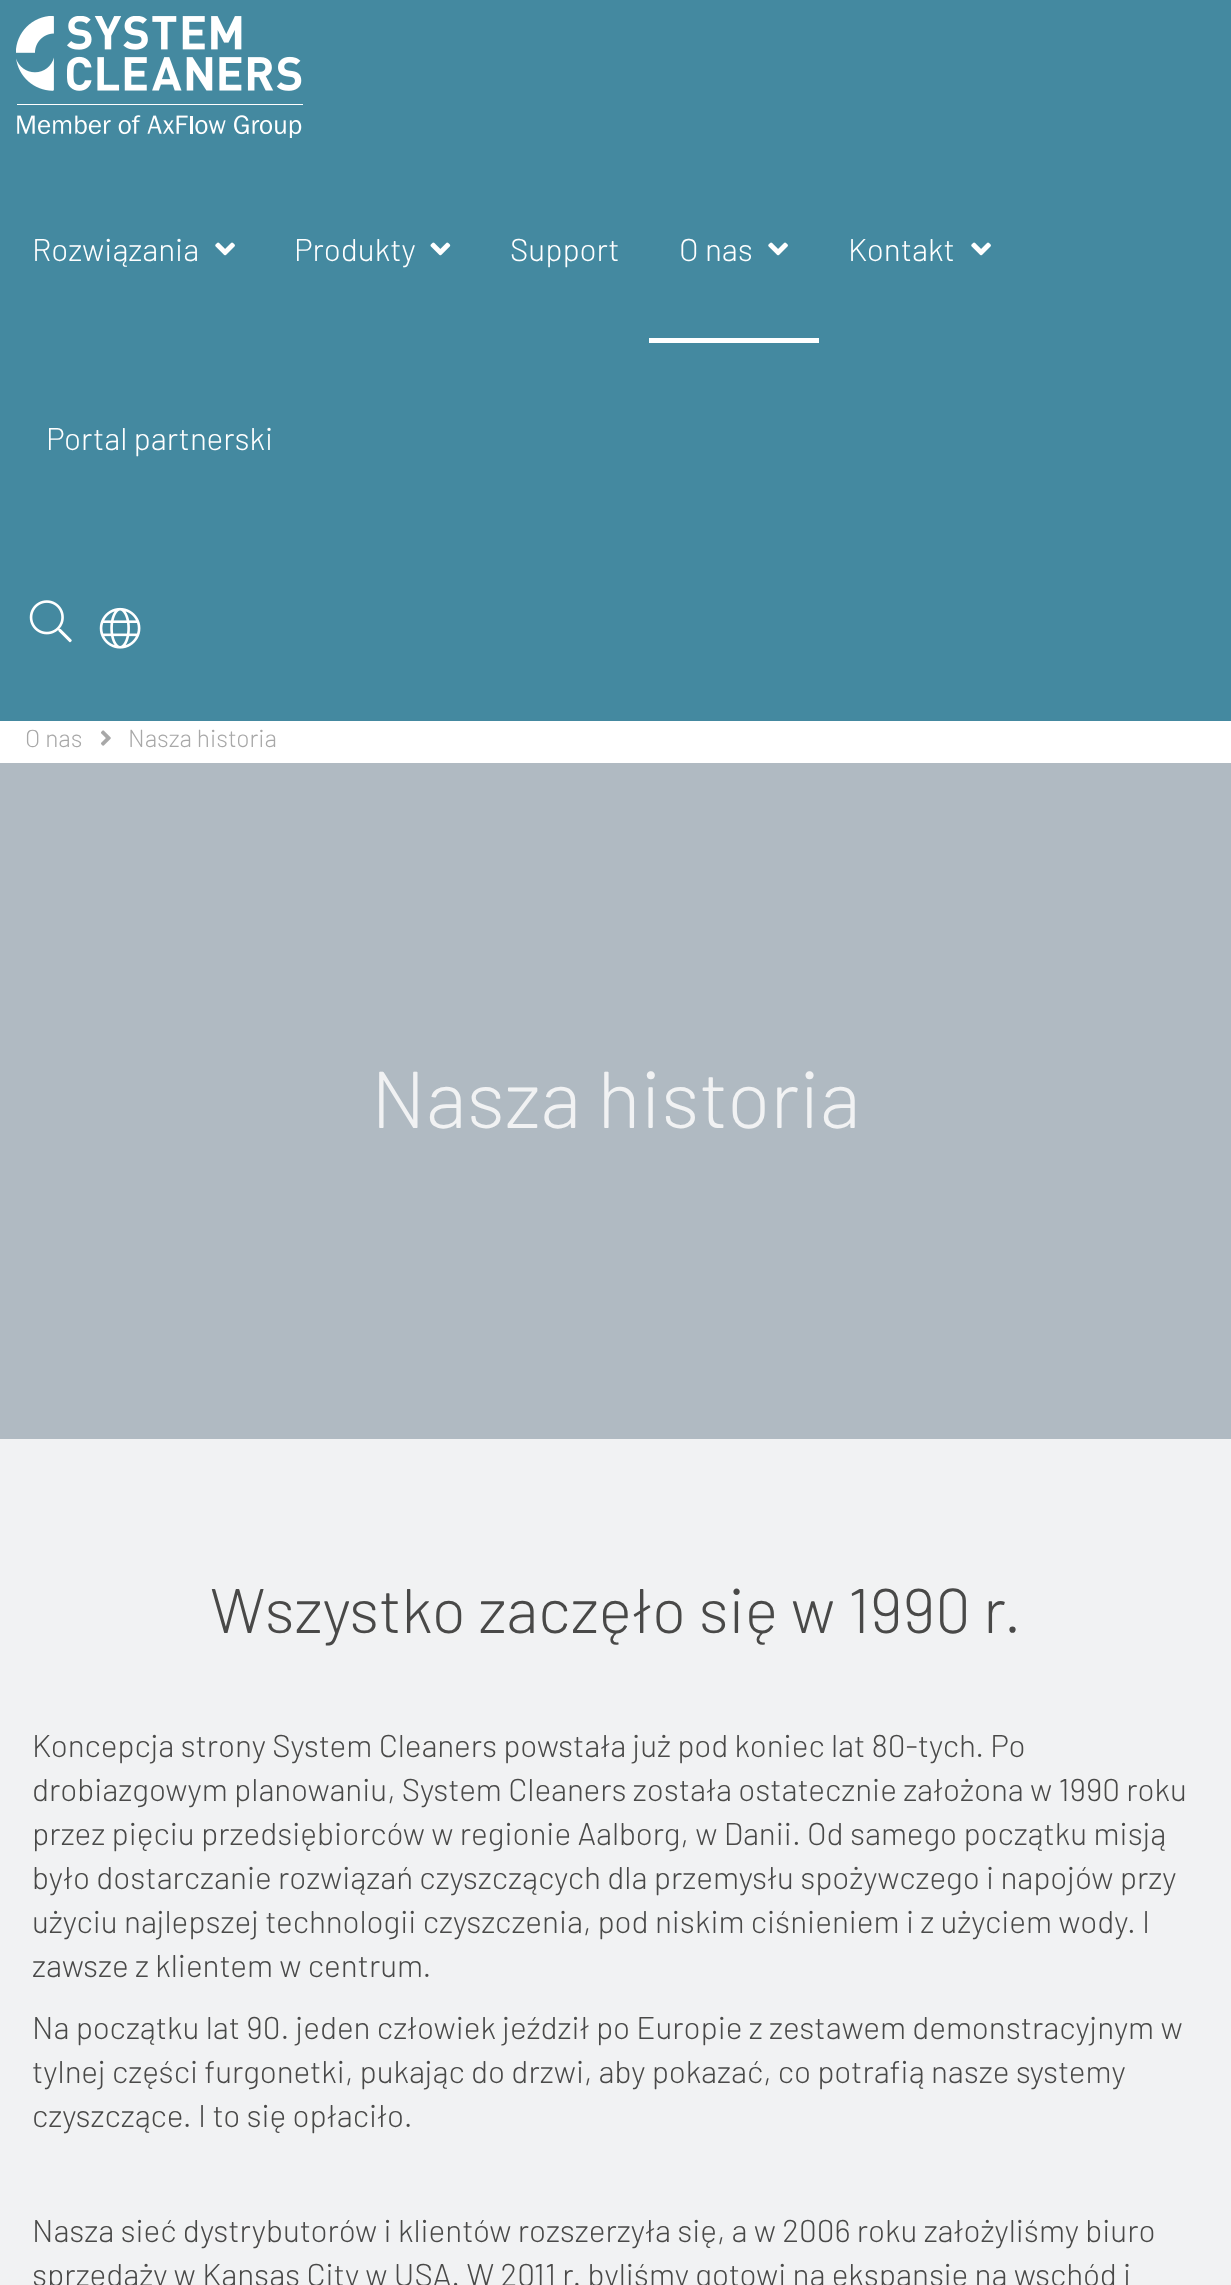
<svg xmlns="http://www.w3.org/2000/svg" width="1231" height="2285">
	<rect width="100%" height="100%" fill="#FFFFFF" />
	<rect x="0" y="0" width="1231" height="721" fill="#4489A0" />
	<image x="16" y="16" width="287" height="122" href="assets/img1.png" />
	<text x="32" y="261" font-family="Barlow" font-size="31.5" font-weight="300" fill="#FFFFFF">Rozwiązania</text>
	<image x="215" y="242" width="20" height="14" href="assets/img2.png" />
	<text x="294" y="261" font-family="Barlow" font-size="31.5" font-weight="300" fill="#FFFFFF">Produkty</text>
	<image x="430" y="242" width="21" height="14" href="assets/img3.png" />
	<text x="510" y="261" font-family="Barlow" font-size="31.5" font-weight="300" fill="#FFFFFF">Support</text>
	<rect x="649" y="338" width="170" height="5" fill="#FFFFFF" />
	<text x="679" y="261" font-family="Barlow" font-size="31.5" font-weight="300" fill="#FFFFFF">O nas</text>
	<image x="768" y="242" width="20" height="14" href="assets/img2.png" />
	<text x="848" y="261" font-family="Barlow" font-size="31.5" font-weight="300" fill="#FFFFFF">Kontakt</text>
	<image x="971" y="242" width="20" height="14" href="assets/img2.png" />
	<text x="46" y="450" font-family="Barlow" font-size="31.5" font-weight="300" fill="#FFFFFF">Portal partnerski</text>
	<image x="29" y="600" width="43" height="43" href="assets/img4.png" />
	<image x="99" y="607" width="42" height="42" href="assets/img5.png" />
	<text x="25" y="747" font-family="Barlow" font-size="24.5" font-weight="300" fill="#A8A8A8">O nas</text>
	<image x="101" y="730" width="10" height="16" href="assets/img6.png" />
	<text x="128" y="747" font-family="Barlow" font-size="24.5" font-weight="300" fill="#A8A8A8">Nasza historia</text>
	<rect x="0" y="763" width="1231" height="676" fill="#B0BAC2" />
	<text x="371" y="1128" font-family="Barlow" font-size="80.5" font-weight="300" fill="#F1F2F3">Nasza historia</text>
	<rect x="0" y="1439" width="1231" height="846" fill="#F1F2F3" />
	<text x="210" y="1633" font-family="Barlow" font-size="63" font-weight="300" fill="#494948">Wszystko zaczęło się w 1990 r.</text>
	<g font-family="Barlow" font-size="31.5" font-weight="300" fill="#494948">
		<text x="32" y="1757">Koncepcja strony System Cleaners powstała już pod koniec lat 80-tych. Po</text>
		<text x="32" y="1801">drobiazgowym planowaniu, System Cleaners została ostatecznie założona w 1990 roku</text>
		<text x="32" y="1845">przez pięciu przedsiębiorców w regionie Aalborg, w Danii. Od samego początku misją</text>
		<text x="32" y="1889">było dostarczanie rozwiązań czyszczących dla przemysłu spożywczego i napojów przy</text>
		<text x="32" y="1933">użyciu najlepszej technologii czyszczenia, pod niskim ciśnieniem i z użyciem wody. I</text>
		<text x="32" y="1977">zawsze z klientem w centrum.</text>
		<text x="32" y="2039">Na początku lat 90. jeden człowiek jeździł po Europie z zestawem demonstracyjnym w</text>
		<text x="32" y="2083">tylnej części furgonetki, pukając do drzwi, aby pokazać, co potrafią nasze systemy</text>
		<text x="32" y="2127">czyszczące. I to się opłaciło.</text>
		<text x="32" y="2242">Nasza sieć dystrybutorów i klientów rozszerzyła się, a w 2006 roku założyliśmy biuro</text>
		<text x="32" y="2286">sprzedaży w Kansas City w USA. W 2011 r. byliśmy gotowi na ekspansję na wschód i</text>
	</g>
</svg>
